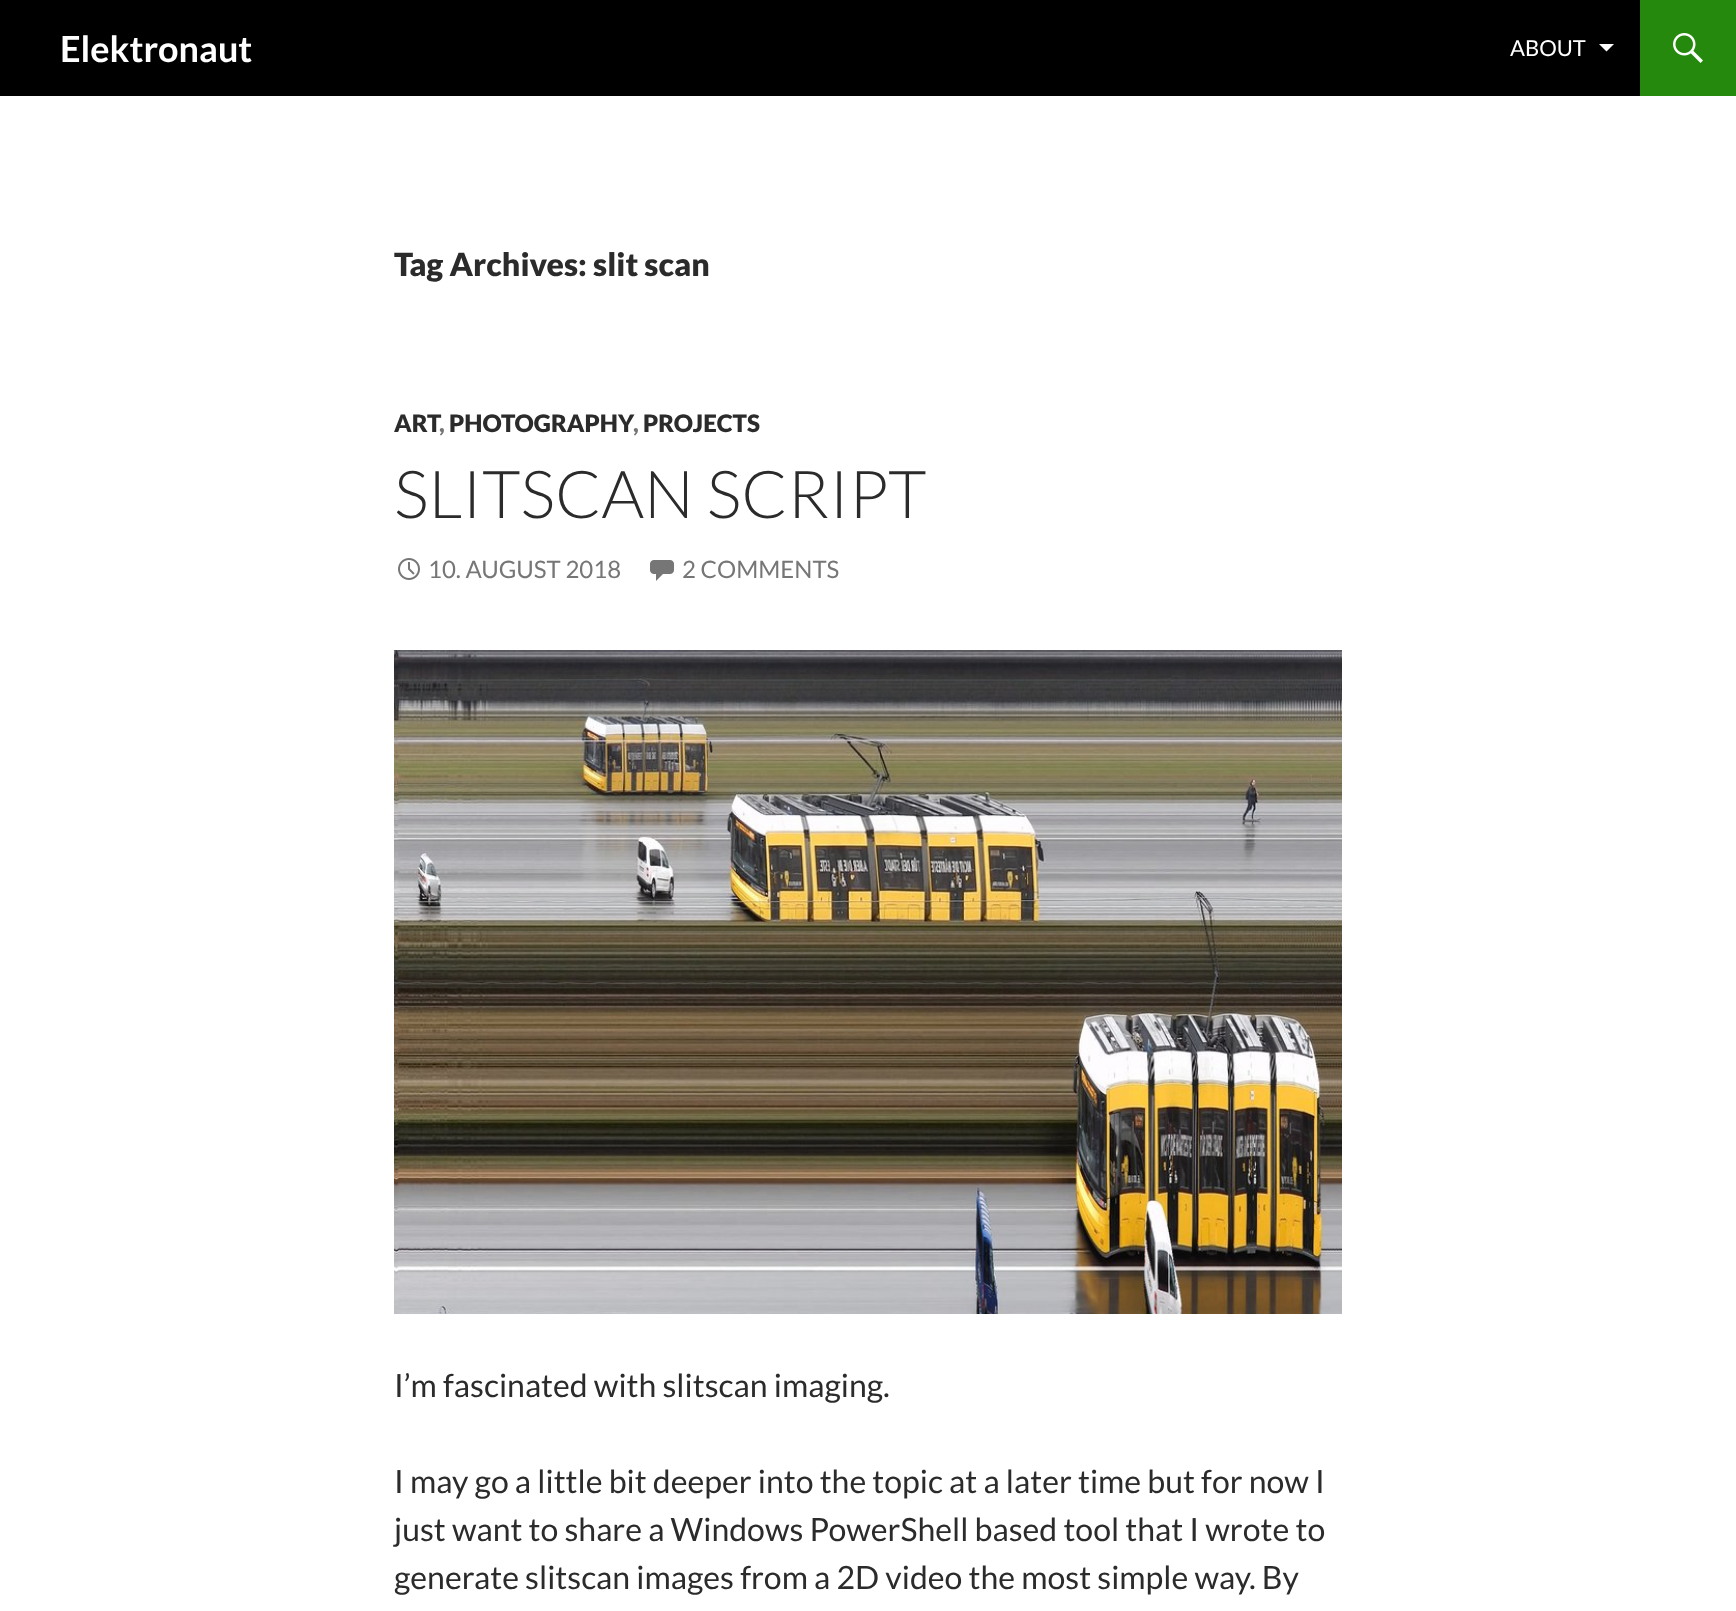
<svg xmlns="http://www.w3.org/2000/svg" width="1736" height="1611">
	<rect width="100%" height="100%" fill="#FFFFFF" />
	<rect x="0" y="0" width="1640" height="96" fill="#000000" />
	<text x="60" y="62" font-family="Lato" font-size="36" font-weight="700" fill="#FFFFFF">Elektronaut</text>
	<text x="1510" y="56" font-family="Lato" font-size="22" fill="#FFFFFF">ABOUT</text>
	<path d="M1599 44L1606.5 51.5L1614 44Z" fill="#FFFFFF" />
	<rect x="1640" y="0" width="96" height="96" fill="#24890D" />
	<image x="1673" y="33" width="30" height="30" href="assets/img1.png" />
	<text x="394" y="276" font-family="Lato" font-size="32" font-weight="900" fill="#2B2B2B">Tag Archives: slit scan</text>
	<g font-family="Lato" font-size="24" font-weight="900" fill="#2B2B2B">
		<text x="394" y="432">ART</text>
		<text x="449" y="432">PHOTOGRAPHY</text>
		<text x="643" y="432">PROJECTS</text>
	</g>
	<g font-family="Lato" font-size="24" font-weight="900" fill="#767676">
		<text x="439" y="432">,</text>
		<text x="633" y="432">,</text>
	</g>
	<text x="394" y="518" font-family="Lato" font-size="66" font-weight="300" fill="#2B2B2B">SLITSCAN SCRIPT</text>
	<image x="398" y="558" width="22" height="22" href="assets/img2.png" />
	<text x="428" y="578" font-family="Lato" font-size="24" fill="#767676">10. AUGUST 2018</text>
	<image x="650" y="560" width="24" height="21" href="assets/img3.png" />
	<text x="682" y="578" font-family="Lato" font-size="24" fill="#767676">2 COMMENTS</text>
	<image x="394" y="650" width="948" height="664" href="assets/img4.png" />
	<g font-family="Lato" font-size="32" fill="#2B2B2B">
		<text x="394" y="1397">I’m fascinated with slitscan imaging.</text>
		<text x="394" y="1493">I may go a little bit deeper into the topic at a later time but for now I</text>
		<text x="394" y="1541">just want to share a Windows PowerShell based tool that I wrote to</text>
		<text x="394" y="1589">generate slitscan images from a 2D video the most simple way. By</text>
	</g>
</svg>
